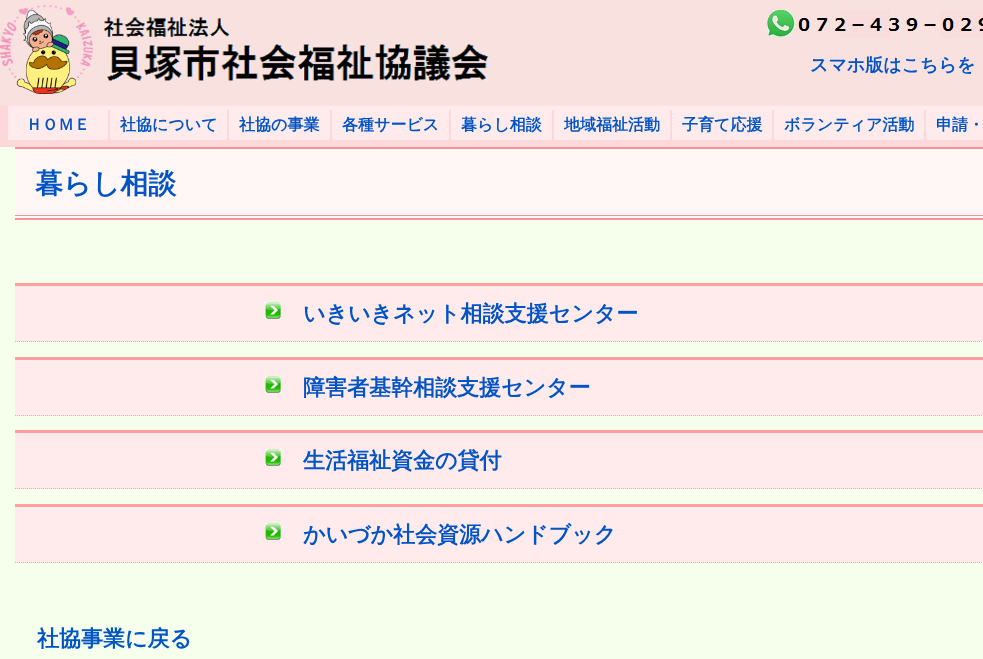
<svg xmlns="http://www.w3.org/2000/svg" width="983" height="659">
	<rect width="100%" height="100%" fill="#F9E1E0" />
	<image x="0" y="5" width="489" height="89" href="assets/img1.png" />
	<image x="765" y="10" width="218" height="28" href="assets/img2.png" />
	<text x="810" y="71" font-family="WenQuanYi Zen Hei" font-size="18" font-weight="700" fill="#0054C6">スマホ版はこちらを</text>
	<rect x="0" y="106" width="983" height="41" fill="#FCD8DB" />
	<rect x="8" y="106" width="975" height="4" fill="#FFEBEB" />
	<path d="M8 110H108V138C108 139 107 140 106 140H10C9 140 8 139 8 138Z" fill="#FFEBEB" />
	<text x="26" y="130" font-family="WenQuanYi Zen Hei" font-size="16" font-weight="700" fill="#0054C6">ＨＯＭＥ</text>
	<path d="M110 110H227V138C227 139 226 140 225 140H112C111 140 110 139 110 138Z" fill="#FFEBEB" />
	<text x="120" y="130" font-family="WenQuanYi Zen Hei" font-size="16" font-weight="700" fill="#0054C6">社協について</text>
	<path d="M229 110H330V138C330 139 329 140 328 140H231C230 140 229 139 229 138Z" fill="#FFEBEB" />
	<text x="239" y="130" font-family="WenQuanYi Zen Hei" font-size="16" font-weight="700" fill="#0054C6">社協の事業</text>
	<path d="M332 110H449V138C449 139 448 140 447 140H334C333 140 332 139 332 138Z" fill="#FFEBEB" />
	<text x="342" y="130" font-family="WenQuanYi Zen Hei" font-size="16" font-weight="700" fill="#0054C6">各種サービス</text>
	<path d="M451 110H552V138C552 139 551 140 550 140H453C452 140 451 139 451 138Z" fill="#FFEBEB" />
	<text x="461" y="130" font-family="WenQuanYi Zen Hei" font-size="16" font-weight="700" fill="#0054C6">暮らし相談</text>
	<path d="M554 110H670V138C670 139 669 140 668 140H556C555 140 554 139 554 138Z" fill="#FFEBEB" />
	<text x="564" y="130" font-family="WenQuanYi Zen Hei" font-size="16" font-weight="700" fill="#0054C6">地域福祉活動</text>
	<path d="M672 110H772V138C772 139 771 140 770 140H674C673 140 672 139 672 138Z" fill="#FFEBEB" />
	<text x="682" y="130" font-family="WenQuanYi Zen Hei" font-size="16" font-weight="700" fill="#0054C6">子育て応援</text>
	<path d="M774 110H924V138C924 139 923 140 922 140H776C775 140 774 139 774 138Z" fill="#FFEBEB" />
	<text x="784" y="130" font-family="WenQuanYi Zen Hei" font-size="16" font-weight="700" fill="#0054C6">ボランティア活動</text>
	<path d="M926 110H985V138C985 139 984 140 983 140H928C927 140 926 139 926 138Z" fill="#FFEBEB" />
	<text x="936" y="130" font-family="WenQuanYi Zen Hei" font-size="16" font-weight="700" fill="#0054C6">申請・</text>
	<rect x="0" y="147" width="983" height="512" fill="#F5FFEC" />
	<rect x="15" y="149" width="968" height="69" fill="#FFF6F6" />
	<rect x="15" y="215" width="968" height="1" fill="#F8919B" />
	<rect x="15" y="147" width="968" height="2" fill="#F8919B" />
	<rect x="15" y="218" width="968" height="2" fill="#F8919B" />
	<text x="35" y="193" font-family="WenQuanYi Zen Hei" font-size="28" font-weight="700" fill="#0054C6">暮らし相談</text>
	<rect x="15" y="286" width="968" height="56" fill="#FFEBEB" />
	<image x="265" y="302" width="16" height="17" href="assets/img3.png" />
	<rect x="15" y="283" width="968" height="3" fill="#FF9E9E" />
	<path d="M15 341.5H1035" fill="none" stroke="#FF9E9E" stroke-dasharray="1 1" />
	<text x="303" y="321" font-family="WenQuanYi Zen Hei" font-size="22" font-weight="700" fill="#0054C6">いきいきネット相談支援センター</text>
	<rect x="15" y="360" width="968" height="56" fill="#FFEBEB" />
	<image x="265" y="376" width="16" height="17" href="assets/img3.png" />
	<rect x="15" y="357" width="968" height="3" fill="#FF9E9E" />
	<path d="M15 415.5H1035" fill="none" stroke="#FF9E9E" stroke-dasharray="1 1" />
	<text x="303" y="395" font-family="WenQuanYi Zen Hei" font-size="22" font-weight="700" fill="#0054C6">障害者基幹相談支援センター</text>
	<rect x="15" y="433" width="968" height="56" fill="#FFEBEB" />
	<image x="265" y="449" width="16" height="17" href="assets/img3.png" />
	<rect x="15" y="430" width="968" height="3" fill="#FF9E9E" />
	<path d="M15 488.5H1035" fill="none" stroke="#FF9E9E" stroke-dasharray="1 1" />
	<text x="303" y="468" font-family="WenQuanYi Zen Hei" font-size="22" font-weight="700" fill="#0054C6">生活福祉資金の貸付</text>
	<rect x="15" y="507" width="968" height="56" fill="#FFEBEB" />
	<image x="265" y="523" width="16" height="17" href="assets/img3.png" />
	<rect x="15" y="504" width="968" height="3" fill="#FF9E9E" />
	<path d="M15 562.5H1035" fill="none" stroke="#FF9E9E" stroke-dasharray="1 1" />
	<g font-family="WenQuanYi Zen Hei" font-size="22" font-weight="700" fill="#0054C6">
		<text x="303" y="542">かいづか社会資源ハンドブック</text>
		<text x="37" y="646">社協事業に戻る</text>
	</g>
</svg>
